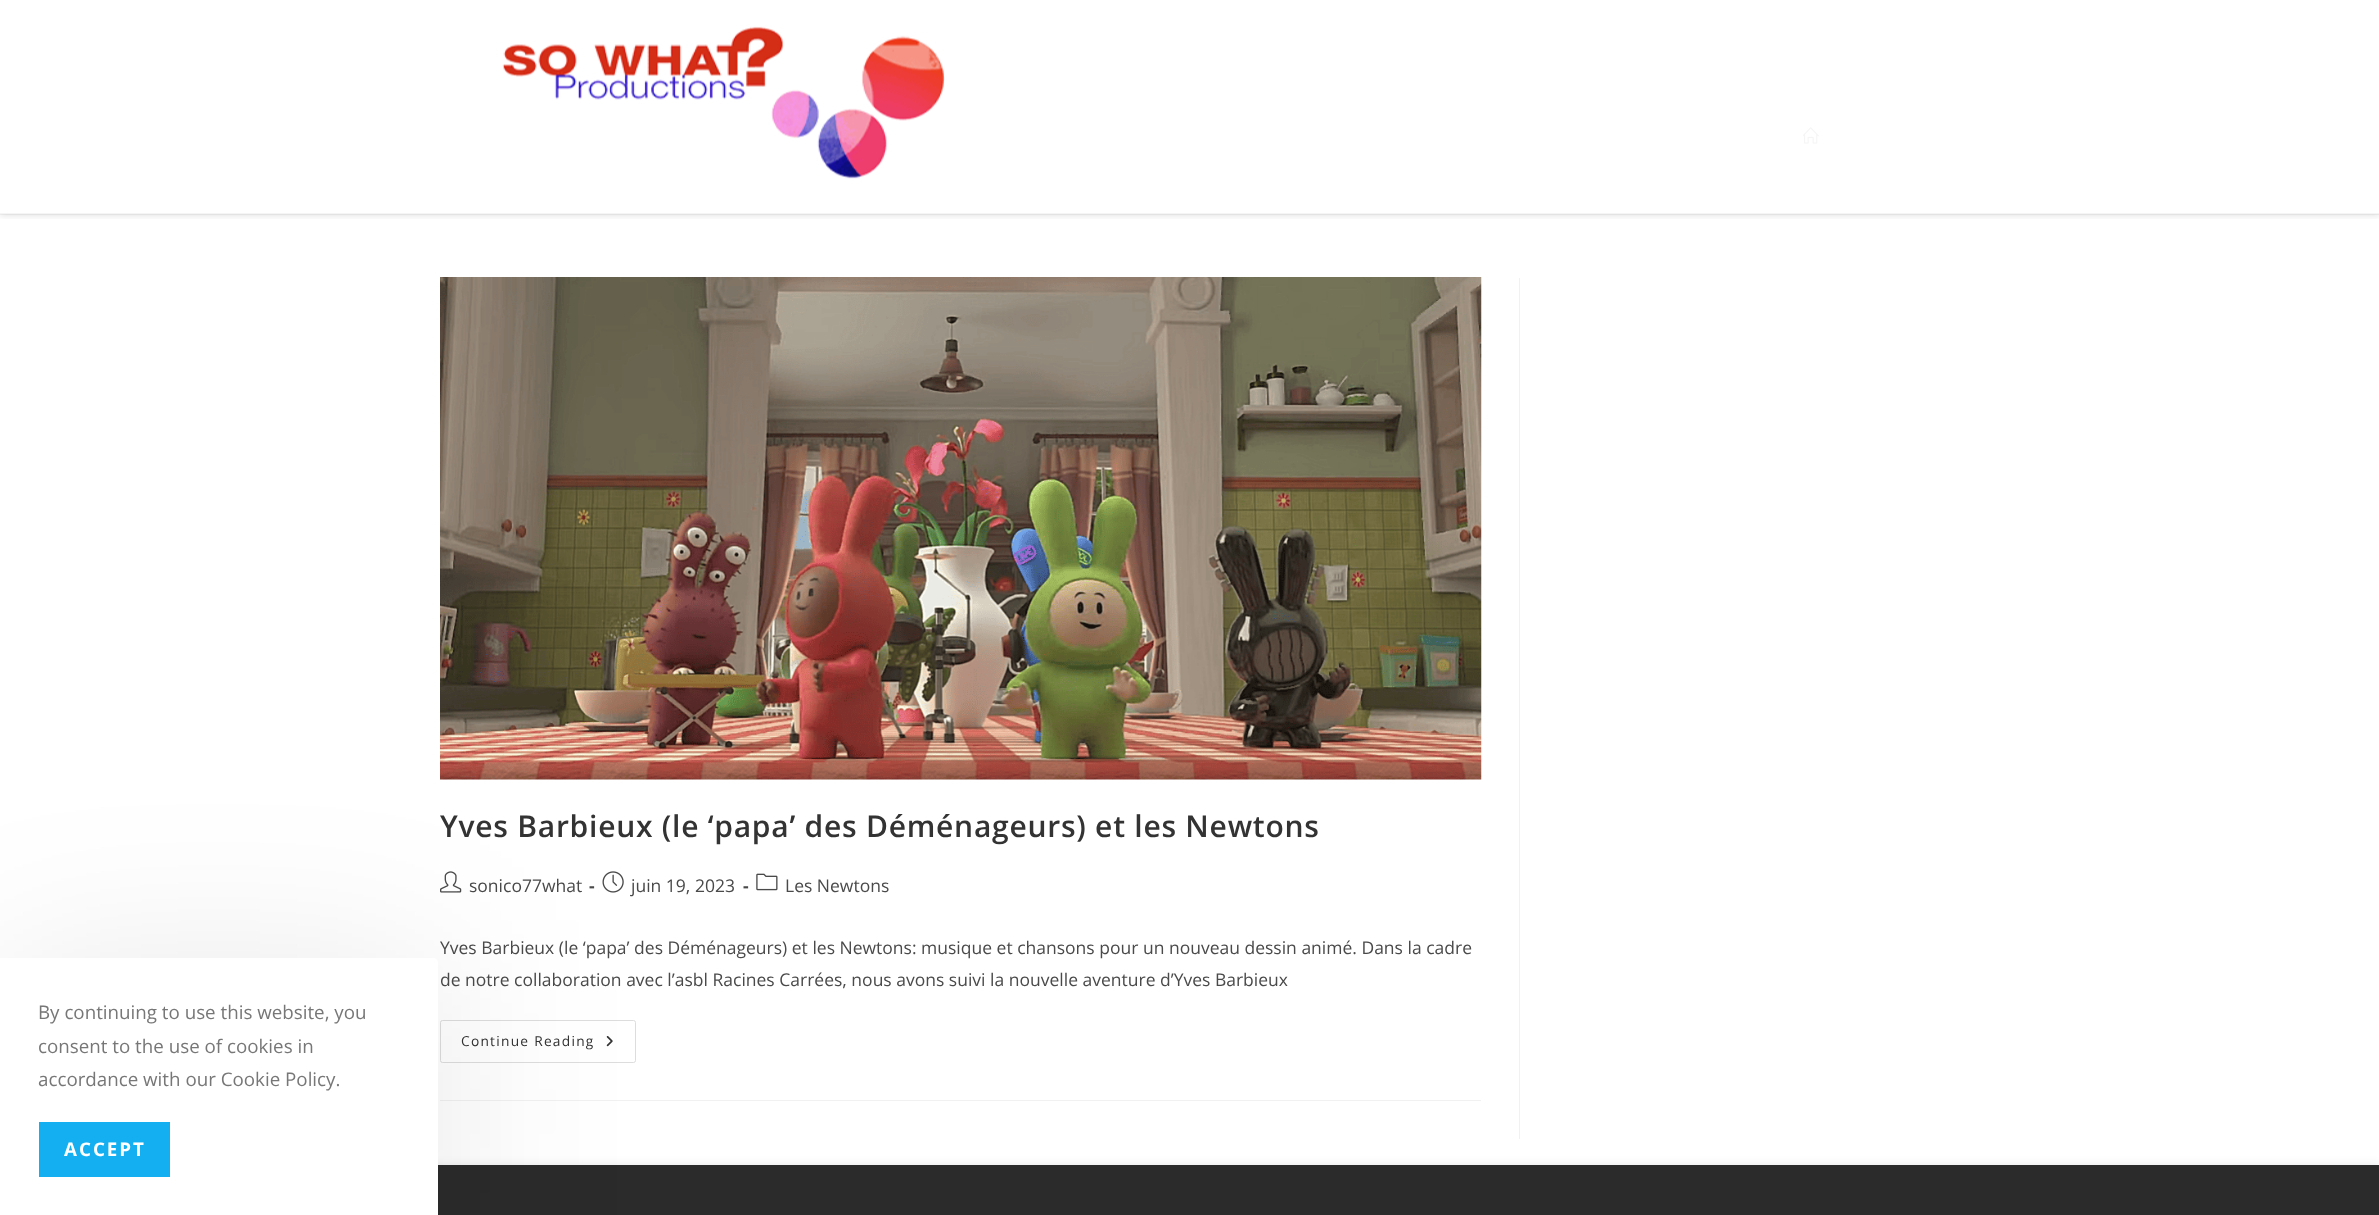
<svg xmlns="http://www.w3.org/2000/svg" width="2379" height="1215">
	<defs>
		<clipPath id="clip1"><rect x="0" y="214" width="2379" height="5" /></clipPath>
	</defs>
	<rect width="100%" height="100%" fill="#FFFFFF" />
	<rect x="0" y="75" width="2379" height="140" fill="#F5F5F5" />
	<image x="1803" y="127" width="16" height="17" href="assets/img2.png" />
	<g clip-path="url(#clip1)">
		<rect x="0" y="3" width="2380" height="213" fill="#000000" fill-opacity="0.1" filter="blur(3px)" />
	</g>
	<rect x="0" y="75" width="2379" height="138" fill="#FFFFFF" fill-opacity="0.95" />
	<image x="502" y="26" width="443" height="153" href="assets/img1.png" />
	<rect x="1519" y="278" width="1" height="861" fill="#F1F1F1" />
	<rect x="440" y="1100" width="1041" height="1" fill="#F1F1F1" />
	<image x="440" y="277" width="1042" height="503" href="assets/img3.png" />
	<text x="440" y="837" font-family="Open Sans" font-size="30" font-weight="600" letter-spacing="0.75" fill="#333333">Yves Barbieux (le ‘papa’ des Déménageurs) et les Newtons</text>
	<image x="440" y="871" width="22" height="22" href="assets/img4.png" />
	<text x="469" y="892" font-family="Open Sans" font-size="17.5" fill="#4A4A4A">sonico77what</text>
	<text x="589" y="892" font-family="Open Sans" font-size="17.5" font-weight="700" fill="#4A4A4A">-</text>
	<image x="602" y="871" width="22" height="22" href="assets/img5.png" />
	<text x="631" y="892" font-family="Open Sans" font-size="17.5" fill="#4A4A4A">juin 19, 2023</text>
	<text x="743" y="892" font-family="Open Sans" font-size="17.5" font-weight="700" fill="#4A4A4A">-</text>
	<image x="756" y="873" width="22" height="18" href="assets/img6.png" />
	<g font-family="Open Sans" font-size="17.5" fill="#4A4A4A">
		<text x="785" y="892">Les Newtons</text>
		<text x="440" y="954">Yves Barbieux (le ‘papa’ des Déménageurs) et les Newtons: musique et chansons pour un nouveau dessin animé. Dans la cadre</text>
		<text x="440" y="986">de notre collaboration avec l’asbl Racines Carrées, nous avons suivi la nouvelle aventure d’Yves Barbieux</text>
	</g>
	<rect x="440.5" y="1020.5" width="195" height="42" rx="2" fill="none" stroke="#DDDDDD" />
	<text x="461" y="1046" font-family="Open Sans" font-size="13.75" letter-spacing="1.25" fill="#333333">Continue Reading</text>
	<image x="606" y="1036" width="7" height="11" href="assets/img7.png" />
	<rect x="0" y="1165" width="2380" height="50" fill="#1A1A1A" fill-opacity="0.1" filter="blur(5px)" />
	<rect x="438" y="1165" width="1941" height="50" fill="#2B2B2B" />
	<rect x="0" y="983" width="438" height="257" rx="5" fill="#000000" fill-opacity="0.1" filter="blur(94px)" />
	<path d="M0 958H433C436 958 438 960 438 963V1215H0Z" fill="#FFFFFF" />
	<g font-family="Open Sans" font-size="18.75" fill="#777777">
		<text x="38" y="1019">By continuing to use this website, you</text>
		<text x="38" y="1053">consent to the use of cookies in</text>
		<text x="38" y="1086">accordance with our Cookie Policy.</text>
	</g>
	<rect x="39" y="1122" width="131" height="55" fill="#13AFF0" />
	<text x="64" y="1156" font-family="Open Sans" font-size="18.75" font-weight="700" letter-spacing="2" fill="#FFFFFF">ACCEPT</text>
</svg>
